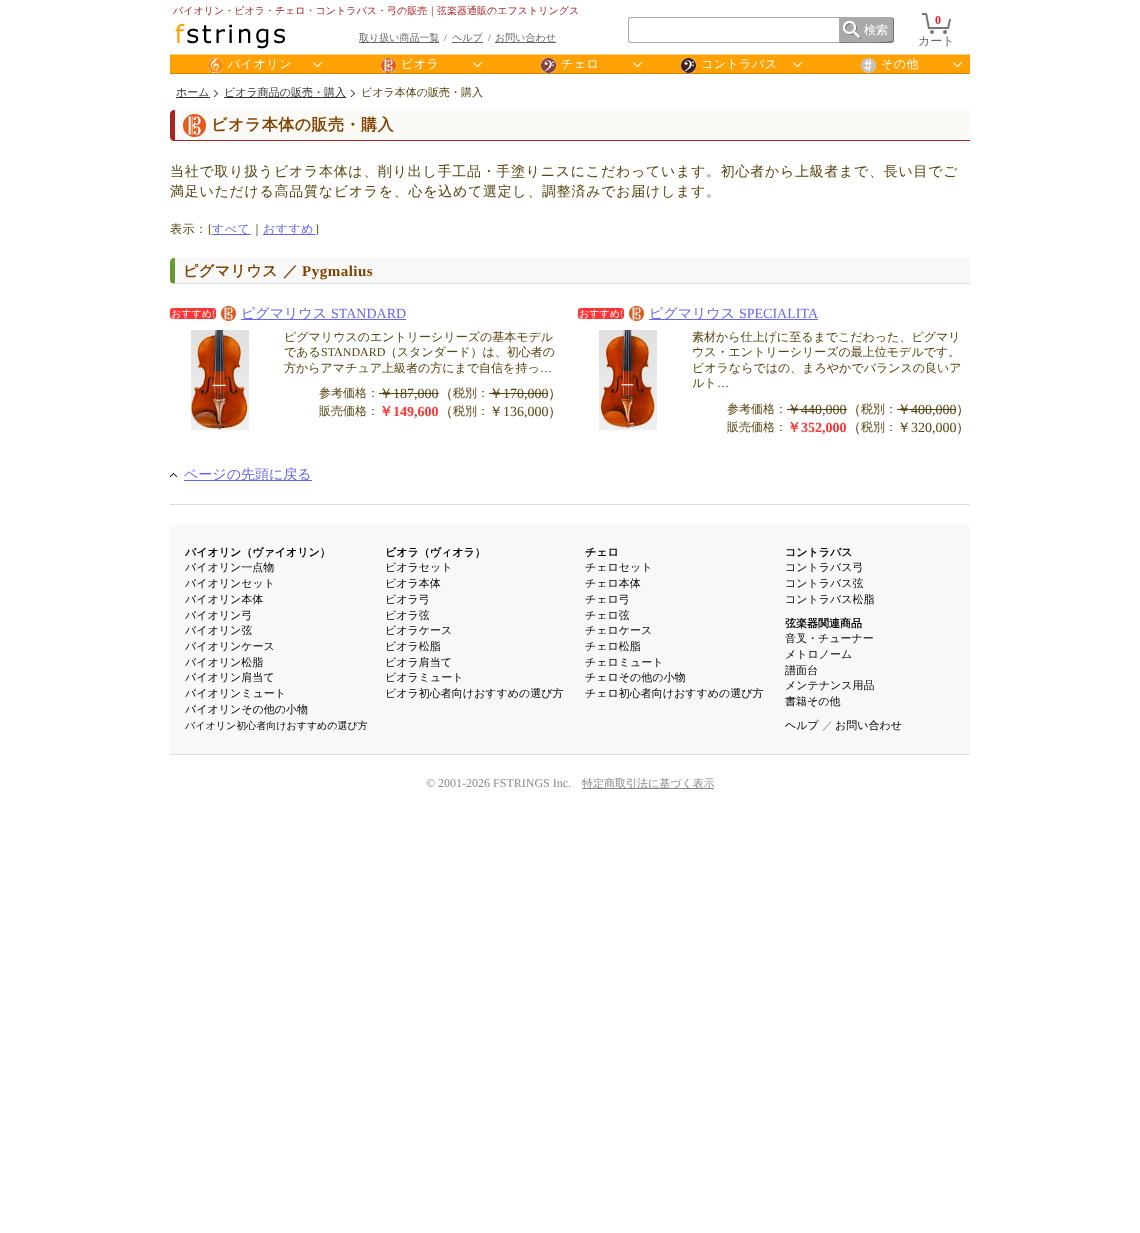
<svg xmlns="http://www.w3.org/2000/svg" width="1140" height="1233">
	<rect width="100%" height="100%" fill="#FFFFFF" />
	<text x="173" y="14" font-family="WenQuanYi Zen Hei" font-size="10" font-weight="500" fill="#AA2222">バイオリン・ビオラ・チェロ・コントラバス・弓の販売｜弦楽器通販のエフストリングス</text>
	<image x="175" y="24" width="110" height="25" href="assets/img1.png" />
	<rect x="359" y="42" width="80" height="1" fill="#666666" />
	<text x="359" y="41" font-family="WenQuanYi Zen Hei" font-size="10" font-weight="500" fill="#666666">取り扱い商品一覧</text>
	<text x="444" y="41" font-family="Liberation Serif" font-size="10" fill="#554411">/</text>
	<rect x="452" y="42" width="31" height="1" fill="#666666" />
	<text x="452" y="41" font-family="WenQuanYi Zen Hei" font-size="10" font-weight="500" fill="#666666">ヘルプ</text>
	<text x="488" y="41" font-family="Liberation Serif" font-size="10" fill="#554411">/</text>
	<rect x="495" y="42" width="61" height="1" fill="#666666" />
	<text x="495" y="41" font-family="WenQuanYi Zen Hei" font-size="10" font-weight="500" fill="#666666">お問い合わせ</text>
	<path d="M631 17H839V43H631C629 43 628 42 628 40V20C628 18 629 17 631 17ZM631 18H839V42H631C630 42 629 41 629 40V20C629 19 630 18 631 18Z" fill="#AAAAAA" fill-rule="evenodd" />
	<path d="M839 17H891C892.5 17 894 18.5 894 20V40C894 41.5 892.5 43 891 43H839Z" fill="#AAAAAA" />
	<image x="843" y="21" width="18" height="18" href="assets/img2.png" />
	<path d="M839 17L840 18C846 18 891 17 892 19L893 18L891 17Z" fill="#AAAAAA" />
	<path d="M894 40V20C894 19 894 18 893 18L892.5 18.5C893 19 893 19.5 893 20V40C893 40.5 893 41 892.5 41.5L893 42C894 42 894 41 894 40Z" fill="#717171" />
	<path d="M891 43L893 42L892 41C891 43 846 42 840 42L839 43Z" fill="#717171" />
	<path d="M839 17V43L840 42V18Z" fill="#AAAAAA" />
	<text x="864" y="34" font-family="WenQuanYi Zen Hei" font-size="12" font-weight="500" fill="#FFFFFF">検索</text>
	<image x="922" y="13" width="29" height="21" href="assets/img3.png" />
	<text x="935" y="24" font-family="Liberation Serif" font-size="12" font-weight="700" fill="#DD2222">0</text>
	<text x="918" y="45" font-family="WenQuanYi Zen Hei" font-size="12" font-weight="500" fill="#666666">カート</text>
	<rect x="170" y="55" width="800" height="18" fill="#FFA103" />
	<image x="313" y="62" width="9" height="5" href="assets/img4.png" />
	<rect x="170" y="54" width="800" height="1" fill="#FFD284" />
	<rect x="170" y="73" width="800" height="1" fill="#D18400" />
	<image x="208" y="58" width="15" height="15" href="assets/img5.png" />
	<text x="228" y="68" font-family="WenQuanYi Zen Hei" font-size="12" font-weight="500" letter-spacing="0.5" fill="#FFFFFF">バイオリン</text>
	<image x="473" y="62" width="9" height="5" href="assets/img4.png" />
	<image x="381" y="58" width="15" height="15" href="assets/img6.png" />
	<text x="401" y="68" font-family="WenQuanYi Zen Hei" font-size="12" font-weight="500" letter-spacing="0.5" fill="#FFFFFF">ビオラ</text>
	<image x="633" y="62" width="9" height="5" href="assets/img4.png" />
	<image x="541" y="58" width="15" height="15" href="assets/img7.png" />
	<text x="561" y="68" font-family="WenQuanYi Zen Hei" font-size="12" font-weight="500" letter-spacing="0.5" fill="#FFFFFF">チェロ</text>
	<image x="793" y="62" width="9" height="5" href="assets/img4.png" />
	<image x="681" y="58" width="15" height="15" href="assets/img8.png" />
	<text x="701" y="68" font-family="WenQuanYi Zen Hei" font-size="12" font-weight="500" letter-spacing="0.5" fill="#FFFFFF">コントラバス</text>
	<image x="953" y="62" width="9" height="5" href="assets/img4.png" />
	<image x="861" y="58" width="15" height="15" href="assets/img9.png" />
	<text x="881" y="68" font-family="WenQuanYi Zen Hei" font-size="12" font-weight="500" letter-spacing="0.5" fill="#FFFFFF">その他</text>
	<rect x="176" y="97" width="34" height="1" fill="#333333" />
	<text x="176" y="96" font-family="WenQuanYi Zen Hei" font-size="11" font-weight="500" fill="#333333">ホーム</text>
	<image x="214" y="90" width="4" height="7" href="assets/img10.png" />
	<rect x="224" y="97" width="122" height="1" fill="#333333" />
	<text x="224" y="96" font-family="WenQuanYi Zen Hei" font-size="11" font-weight="500" fill="#333333">ビオラ商品の販売・購入</text>
	<image x="351" y="90" width="4" height="7" href="assets/img10.png" />
	<text x="361" y="96" font-family="WenQuanYi Zen Hei" font-size="11" font-weight="500" fill="#554411">ビオラ本体の販売・購入</text>
	<path d="M174 110H970V141H174C172 141 170 139 170 137V114C170 112 172 110 174 110Z" fill="#FCFAF6" />
	<path d="M174 110H970V141H174C172 141 170 139 170 137V114C170 112 172 110 174 110ZM175 110H970V140H175Z" fill="#AA2222" fill-rule="evenodd" />
	<image x="183" y="114" width="23" height="23" href="assets/img11.png" />
	<text x="211" y="130" font-family="WenQuanYi Zen Hei" font-size="16" font-weight="700" letter-spacing="0.5" fill="#814400">ビオラ本体の販売・購入</text>
	<g font-family="WenQuanYi Zen Hei" font-size="14" font-weight="500" letter-spacing="0.7" fill="#554411">
		<text x="170" y="176">当社で取り扱うビオラ本体は、削り出し手工品・手塗りニスにこだわっています。初心者から上級者まで、長い目でご</text>
		<text x="170" y="196">満足いただける高品質なビオラを、心を込めて選定し、調整済みでお届けします。</text>
	</g>
	<text x="170" y="233" font-family="WenQuanYi Zen Hei" font-size="12" font-weight="500" letter-spacing="0.5" fill="#554411">表示：</text>
	<text x="208" y="233" font-family="Liberation Serif" font-size="12" letter-spacing="0.5" fill="#554411">[</text>
	<rect x="212" y="234" width="39" height="1" fill="#6666EE" />
	<text x="212" y="233" font-family="WenQuanYi Zen Hei" font-size="12" font-weight="500" letter-spacing="0.5" fill="#6666EE">すべて</text>
	<text x="251" y="233" font-family="WenQuanYi Zen Hei" font-size="12" font-weight="500" letter-spacing="0.5" fill="#554411">｜</text>
	<rect x="263" y="234" width="52" height="1" fill="#6666EE" />
	<text x="263" y="233" font-family="WenQuanYi Zen Hei" font-size="12" font-weight="500" letter-spacing="0.5" fill="#6666EE">おすすめ</text>
	<text x="315" y="233" font-family="Liberation Serif" font-size="12" letter-spacing="0.5" fill="#554411">]</text>
	<path d="M174 258H970V284H174C172 284 170 282 170 280V262C170 260 172 258 174 258Z" fill="#F8F8F8" />
	<path d="M970 284V283H175L172 284H174Z" fill="#DDDDDD" />
	<path d="M174 258H175V283L172.5 283.5C171 283 170 281.5 170 280V262C170 260 172 258 174 258Z" fill="#669933" />
	<text x="183" y="276" font-family="WenQuanYi Zen Hei" font-size="15" font-weight="700" letter-spacing="0.5" fill="#814400">ピグマリウス ／</text>
	<text x="302" y="276" font-family="Liberation Serif" font-size="15" font-weight="700" letter-spacing="0.5" fill="#814400">Pygmalius</text>
	<rect x="170" y="308" width="46" height="11" rx="3" fill="#FF3333" />
	<text x="171" y="317" font-family="WenQuanYi Zen Hei" font-size="10" font-weight="500" fill="#FFFFFF">おすすめ</text>
	<text x="212" y="317" font-family="Liberation Serif" font-size="10" fill="#FFFFFF">!</text>
	<image x="221" y="306" width="15" height="15" href="assets/img12.png" />
	<rect x="241" y="319" width="165" height="1" fill="#6666EE" />
	<text x="241" y="318" font-family="WenQuanYi Zen Hei" font-size="14" font-weight="500" fill="#6666EE">ピグマリウス</text>
	<text x="331" y="318" font-family="Liberation Serif" font-size="14" fill="#6666EE">STANDARD</text>
	<image x="191" y="330" width="58" height="100" href="assets/img13.png" />
	<g font-family="WenQuanYi Zen Hei" font-size="12" font-weight="500" fill="#554411">
		<text x="284" y="341">ピグマリウスのエントリーシリーズの基本モデル</text>
		<text x="284" y="356">である</text>
	</g>
	<text x="321" y="356" font-family="Liberation Serif" font-size="12" fill="#554411">STANDARD</text>
	<g font-family="WenQuanYi Zen Hei" font-size="12" font-weight="500" fill="#554411">
		<text x="385" y="356">（スタンダード）は、初心者の</text>
		<text x="284" y="372">方からアマチュア上級者の方にまで自信を持っ</text>
	</g>
	<text x="540" y="372" font-family="Liberation Serif" font-size="12" fill="#554411">…</text>
	<text x="319" y="397" font-family="WenQuanYi Zen Hei" font-size="12" font-weight="500" fill="#554411">参考価格：</text>
	<text x="379" y="398" font-family="WenQuanYi Zen Hei" font-size="14" font-weight="500" fill="#554411">￥</text>
	<rect x="379" y="393" width="60" height="1" fill="#554411" />
	<text x="393" y="398" font-family="Liberation Serif" font-size="14" fill="#554411">187,000</text>
	<text x="439" y="398" font-family="WenQuanYi Zen Hei" font-size="14" font-weight="500" fill="#554411">（</text>
	<text x="453" y="397" font-family="WenQuanYi Zen Hei" font-size="12" font-weight="500" fill="#554411">税別：</text>
	<text x="489" y="398" font-family="WenQuanYi Zen Hei" font-size="14" font-weight="500" fill="#554411">￥</text>
	<rect x="489" y="393" width="59" height="1" fill="#554411" />
	<text x="503" y="398" font-family="Liberation Serif" font-size="14" fill="#554411">170,000</text>
	<text x="548" y="398" font-family="WenQuanYi Zen Hei" font-size="14" font-weight="500" fill="#554411">）</text>
	<text x="319" y="415" font-family="WenQuanYi Zen Hei" font-size="12" font-weight="500" fill="#554411">販売価格：</text>
	<text x="379" y="416" font-family="WenQuanYi Zen Hei" font-size="14" font-weight="700" fill="#FF3333">￥</text>
	<text x="393" y="416" font-family="Liberation Serif" font-size="14" font-weight="700" fill="#FF3333">149,600</text>
	<text x="439" y="416" font-family="WenQuanYi Zen Hei" font-size="14" font-weight="500" fill="#554411">（</text>
	<text x="453" y="415" font-family="WenQuanYi Zen Hei" font-size="12" font-weight="500" fill="#554411">税別：</text>
	<text x="489" y="416" font-family="WenQuanYi Zen Hei" font-size="14" font-weight="500" fill="#554411">￥</text>
	<text x="503" y="416" font-family="Liberation Serif" font-size="14" fill="#554411">136,000</text>
	<text x="548" y="416" font-family="WenQuanYi Zen Hei" font-size="14" font-weight="500" fill="#554411">）</text>
	<rect x="578" y="308" width="46" height="11" rx="3" fill="#FF3333" />
	<text x="579" y="317" font-family="WenQuanYi Zen Hei" font-size="10" font-weight="500" fill="#FFFFFF">おすすめ</text>
	<text x="620" y="317" font-family="Liberation Serif" font-size="10" fill="#FFFFFF">!</text>
	<image x="629" y="306" width="15" height="15" href="assets/img12.png" />
	<rect x="649" y="319" width="169" height="1" fill="#6666EE" />
	<text x="649" y="318" font-family="WenQuanYi Zen Hei" font-size="14" font-weight="500" fill="#6666EE">ピグマリウス</text>
	<text x="739" y="318" font-family="Liberation Serif" font-size="14" fill="#6666EE">SPECIALITA</text>
	<image x="599" y="330" width="58" height="100" href="assets/img14.png" />
	<g font-family="WenQuanYi Zen Hei" font-size="12" font-weight="500" fill="#554411">
		<text x="692" y="341">素材から仕上げに至るまでこだわった、ピグマリ</text>
		<text x="692" y="356">ウス・エントリーシリーズの最上位モデルです。</text>
		<text x="692" y="372">ビオラならではの、まろやかでバランスの良いア</text>
		<text x="692" y="387">ルト</text>
	</g>
	<text x="717" y="387" font-family="Liberation Serif" font-size="12" fill="#554411">…</text>
	<text x="727" y="413" font-family="WenQuanYi Zen Hei" font-size="12" font-weight="500" fill="#554411">参考価格：</text>
	<text x="787" y="414" font-family="WenQuanYi Zen Hei" font-size="14" font-weight="500" fill="#554411">￥</text>
	<rect x="787" y="409" width="60" height="1" fill="#554411" />
	<text x="801" y="414" font-family="Liberation Serif" font-size="14" fill="#554411">440,000</text>
	<text x="847" y="414" font-family="WenQuanYi Zen Hei" font-size="14" font-weight="500" fill="#554411">（</text>
	<text x="861" y="413" font-family="WenQuanYi Zen Hei" font-size="12" font-weight="500" fill="#554411">税別：</text>
	<text x="897" y="414" font-family="WenQuanYi Zen Hei" font-size="14" font-weight="500" fill="#554411">￥</text>
	<rect x="897" y="409" width="59" height="1" fill="#554411" />
	<text x="911" y="414" font-family="Liberation Serif" font-size="14" fill="#554411">400,000</text>
	<text x="956" y="414" font-family="WenQuanYi Zen Hei" font-size="14" font-weight="500" fill="#554411">）</text>
	<text x="727" y="431" font-family="WenQuanYi Zen Hei" font-size="12" font-weight="500" fill="#554411">販売価格：</text>
	<text x="787" y="432" font-family="WenQuanYi Zen Hei" font-size="14" font-weight="700" fill="#FF3333">￥</text>
	<text x="801" y="432" font-family="Liberation Serif" font-size="14" font-weight="700" fill="#FF3333">352,000</text>
	<text x="847" y="432" font-family="WenQuanYi Zen Hei" font-size="14" font-weight="500" fill="#554411">（</text>
	<text x="861" y="431" font-family="WenQuanYi Zen Hei" font-size="12" font-weight="500" fill="#554411">税別：</text>
	<text x="897" y="432" font-family="WenQuanYi Zen Hei" font-size="14" font-weight="500" fill="#554411">￥</text>
	<text x="911" y="432" font-family="Liberation Serif" font-size="14" fill="#554411">320,000</text>
	<text x="956" y="432" font-family="WenQuanYi Zen Hei" font-size="14" font-weight="500" fill="#554411">）</text>
	<image x="170" y="473" width="7" height="4" href="assets/img15.png" />
	<rect x="184" y="480" width="128" height="1" fill="#6666EE" />
	<text x="184" y="479" font-family="WenQuanYi Zen Hei" font-size="14" font-weight="500" fill="#6666EE">ページの先頭に戻る</text>
	<rect x="170" y="504" width="800" height="1" fill="#DDDDDD" />
	<rect x="170" y="525" width="800" height="229" fill="#F8F8F8" />
	<rect x="170" y="754" width="800" height="1" fill="#DDDDDD" />
	<text x="185" y="556" font-family="WenQuanYi Zen Hei" font-size="11" font-weight="700" fill="#000000">バイオリン（ヴァイオリン）</text>
	<g font-family="WenQuanYi Zen Hei" font-size="11" font-weight="500" fill="#000000">
		<text x="185" y="571">バイオリン一点物</text>
		<text x="185" y="587">バイオリンセット</text>
		<text x="185" y="603">バイオリン本体</text>
		<text x="185" y="619">バイオリン弓</text>
		<text x="185" y="634">バイオリン弦</text>
		<text x="185" y="650">バイオリンケース</text>
		<text x="185" y="666">バイオリン松脂</text>
		<text x="185" y="681">バイオリン肩当て</text>
		<text x="185" y="697">バイオリンミュート</text>
		<text x="185" y="713">バイオリンその他の小物</text>
	</g>
	<text x="185" y="729" font-family="WenQuanYi Zen Hei" font-size="10" font-weight="500" fill="#000000">バイオリン初心者向けおすすめの選び方</text>
	<text x="385" y="556" font-family="WenQuanYi Zen Hei" font-size="11" font-weight="700" fill="#000000">ビオラ（ヴィオラ）</text>
	<g font-family="WenQuanYi Zen Hei" font-size="11" font-weight="500" fill="#000000">
		<text x="385" y="571">ビオラセット</text>
		<text x="385" y="587">ビオラ本体</text>
		<text x="385" y="603">ビオラ弓</text>
		<text x="385" y="619">ビオラ弦</text>
		<text x="385" y="634">ビオラケース</text>
		<text x="385" y="650">ビオラ松脂</text>
		<text x="385" y="666">ビオラ肩当て</text>
		<text x="385" y="681">ビオラミュート</text>
		<text x="385" y="697">ビオラ初心者向けおすすめの選び方</text>
	</g>
	<text x="585" y="556" font-family="WenQuanYi Zen Hei" font-size="11" font-weight="700" fill="#000000">チェロ</text>
	<g font-family="WenQuanYi Zen Hei" font-size="11" font-weight="500" fill="#000000">
		<text x="585" y="571">チェロセット</text>
		<text x="585" y="587">チェロ本体</text>
		<text x="585" y="603">チェロ弓</text>
		<text x="585" y="619">チェロ弦</text>
		<text x="585" y="634">チェロケース</text>
		<text x="585" y="650">チェロ松脂</text>
		<text x="585" y="666">チェロミュート</text>
		<text x="585" y="681">チェロその他の小物</text>
		<text x="585" y="697">チェロ初心者向けおすすめの選び方</text>
	</g>
	<text x="785" y="556" font-family="WenQuanYi Zen Hei" font-size="11" font-weight="700" fill="#000000">コントラバス</text>
	<g font-family="WenQuanYi Zen Hei" font-size="11" font-weight="500" fill="#000000">
		<text x="785" y="571">コントラバス弓</text>
		<text x="785" y="587">コントラバス弦</text>
		<text x="785" y="603">コントラバス松脂</text>
	</g>
	<text x="785" y="627" font-family="WenQuanYi Zen Hei" font-size="11" font-weight="700" fill="#000000">弦楽器関連商品</text>
	<g font-family="WenQuanYi Zen Hei" font-size="11" font-weight="500" fill="#000000">
		<text x="785" y="642">音叉・チューナー</text>
		<text x="785" y="658">メトロノーム</text>
		<text x="785" y="674">譜面台</text>
		<text x="785" y="689">メンテナンス用品</text>
		<text x="785" y="705">書籍その他</text>
		<text x="785" y="729">ヘルプ</text>
	</g>
	<text x="822" y="729" font-family="WenQuanYi Zen Hei" font-size="11" font-weight="500" fill="#888888">／</text>
	<text x="835" y="729" font-family="WenQuanYi Zen Hei" font-size="11" font-weight="500" fill="#000000">お問い合わせ</text>
	<text x="426" y="787" font-family="Liberation Serif" font-size="12" fill="#888888">© 2001-2026 FSTRINGS Inc.</text>
	<rect x="582" y="788" width="132" height="1" fill="#888888" />
	<text x="582" y="787" font-family="WenQuanYi Zen Hei" font-size="11" font-weight="500" fill="#888888">特定商取引法に基づく表示</text>
</svg>
